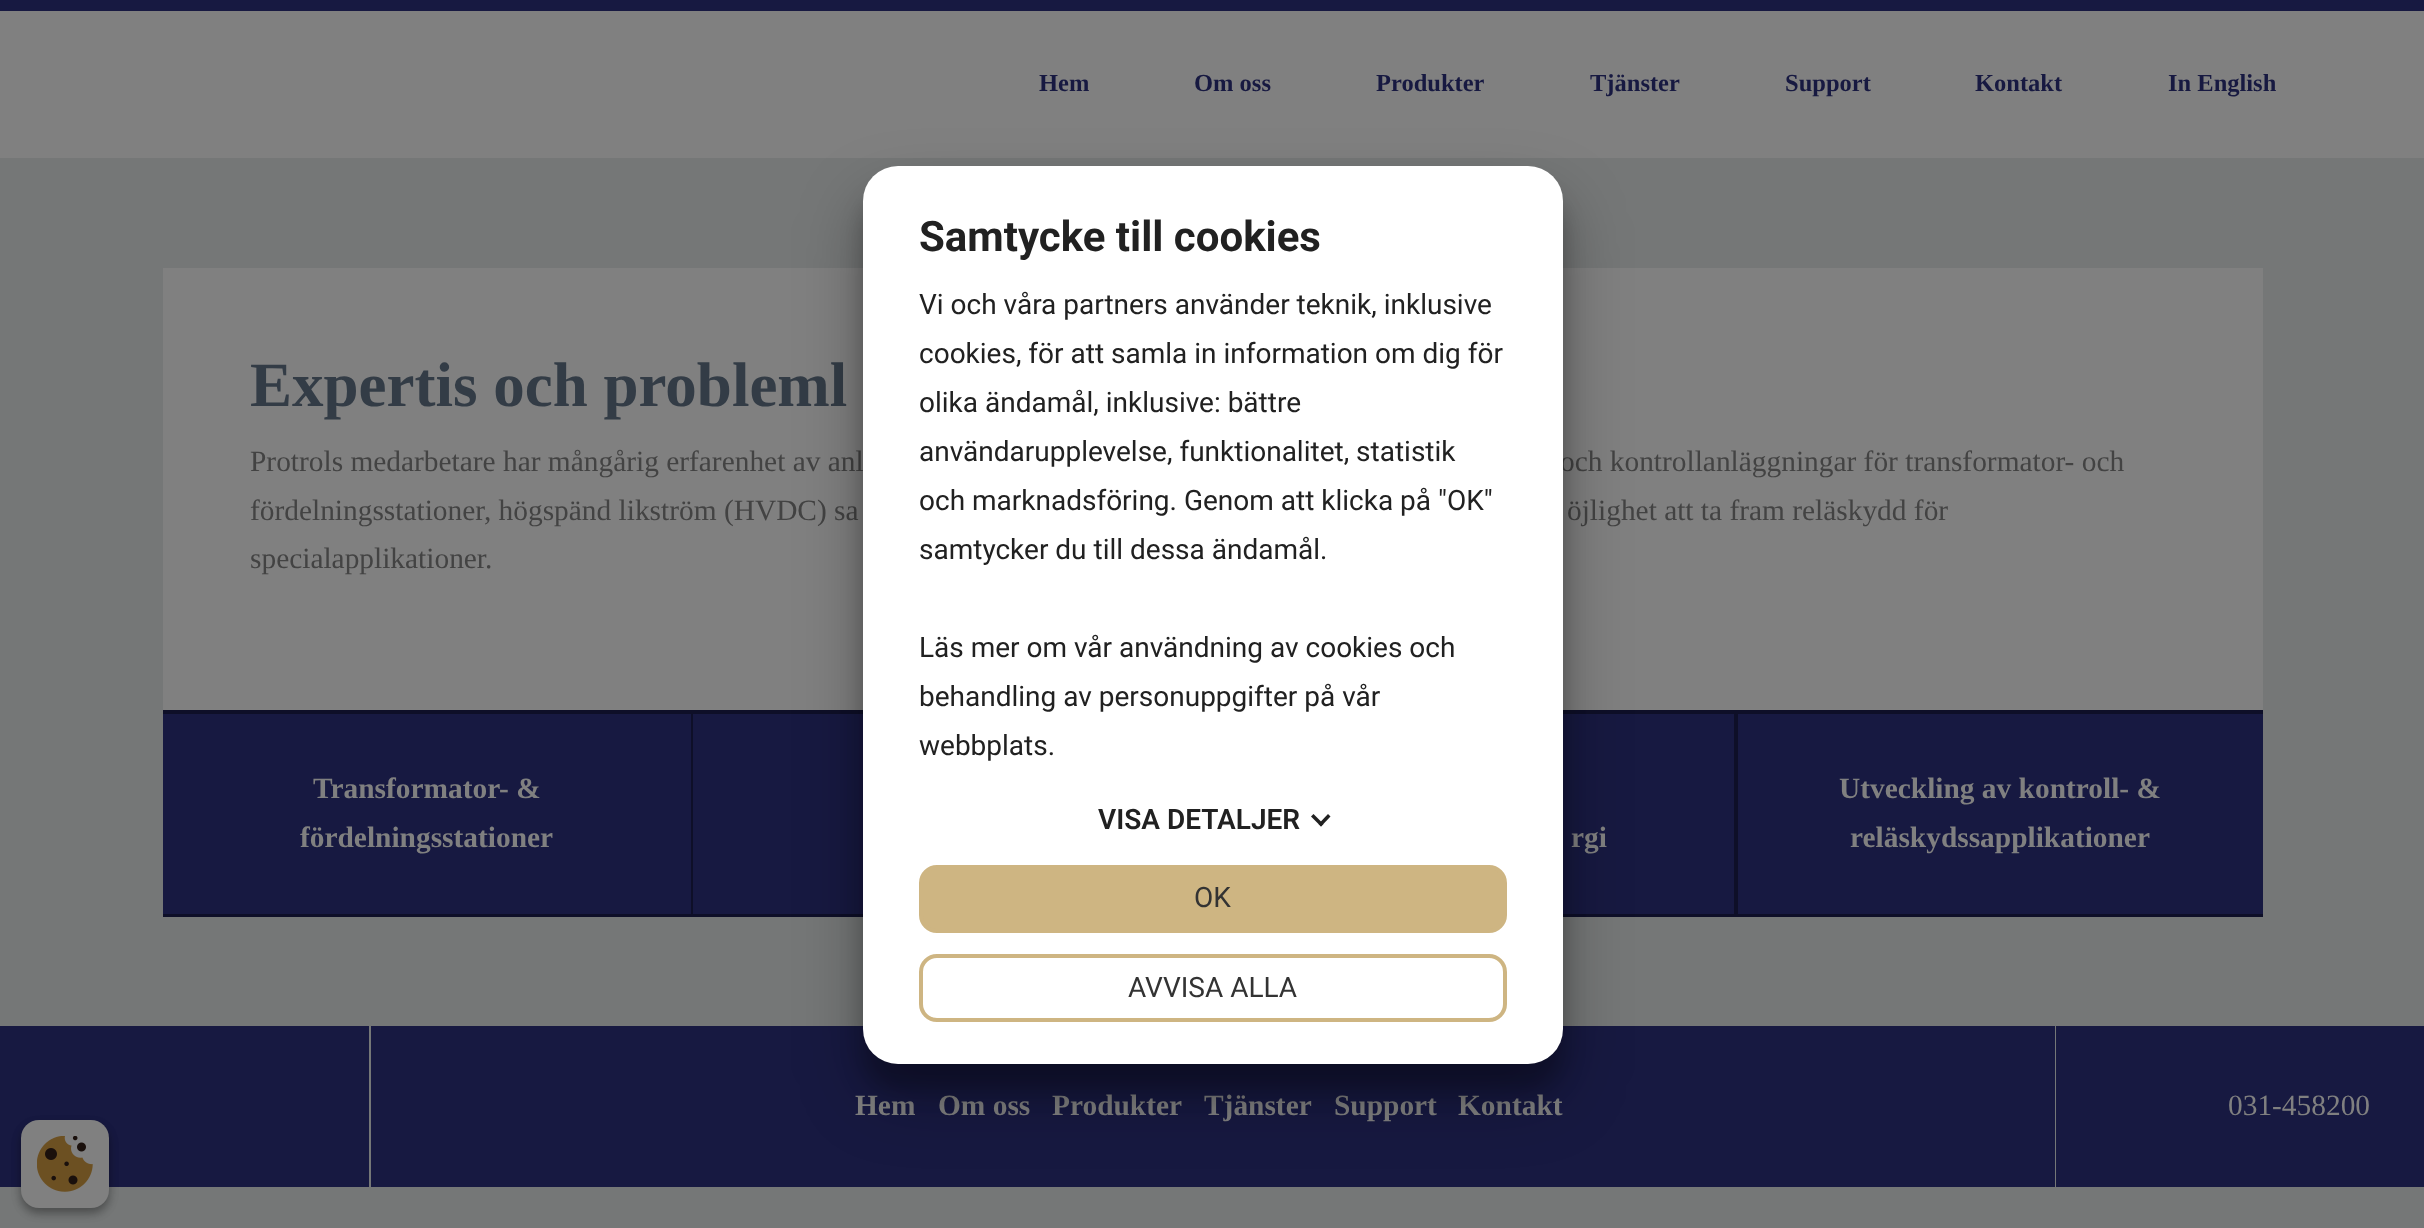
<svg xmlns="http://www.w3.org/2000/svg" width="2424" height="1228">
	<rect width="100%" height="100%" fill="#757777" />
	<rect x="0" y="0" width="2424" height="11" fill="#171941" />
	<rect x="0" y="11" width="2424" height="147" fill="#808080" />
	<g font-family="Liberation Serif" font-size="24.5" font-weight="700" fill="#171941">
		<text x="1039" y="91">Hem</text>
		<text x="1194" y="91">Om oss</text>
		<text x="1376" y="91">Produkter</text>
		<text x="1590" y="91">Tjänster</text>
		<text x="1785" y="91">Support</text>
		<text x="1975" y="91">Kontakt</text>
		<text x="2168" y="91">In English</text>
	</g>
	<rect x="163" y="268" width="2100" height="442" fill="#808080" />
	<text x="250" y="406" font-family="Liberation Serif" font-size="63" font-weight="700" fill="#333C46">Expertis och probleml</text>
	<g font-family="Liberation Serif" font-size="29.4" fill="#434343">
		<text x="250" y="471">Protrols medarbetare har mångårig erfarenhet av anl</text>
		<text x="1560" y="471">och kontrollanläggningar för transformator- och</text>
		<text x="250" y="520">fördelningsstationer, högspänd likström (HVDC) sa</text>
		<text x="1567" y="520">öjlighet att ta fram reläskydd för</text>
		<text x="250" y="568">specialapplikationer.</text>
	</g>
	<path d="M163 710V714H2263V655V710Z" fill="#0E0F28" />
	<rect x="163" y="714" width="2100" height="203" fill="#0E0F28" />
	<rect x="163" y="714" width="528" height="200" fill="#171941" />
	<g font-family="Liberation Serif" font-size="29.4" font-weight="700" fill="#808080">
		<text x="313" y="798">Transformator- &amp;</text>
		<text x="300" y="847">fördelningsstationer</text>
	</g>
	<rect x="693" y="714" width="170" height="200" fill="#171941" />
	<rect x="1563" y="714" width="171" height="200" fill="#171941" />
	<text x="1571" y="847" font-family="Liberation Serif" font-size="29.4" font-weight="700" fill="#808080">rgi</text>
	<rect x="1738" y="714" width="525" height="200" fill="#171941" />
	<g font-family="Liberation Serif" font-size="29.4" font-weight="700" fill="#808080">
		<text x="1839" y="798">Utveckling av kontroll- &amp;</text>
		<text x="1850" y="847">reläskydssapplikationer</text>
	</g>
	<rect x="0" y="1026" width="369" height="161" fill="#171941" />
	<rect x="371" y="1026" width="1684" height="161" fill="#171941" />
	<g font-family="Liberation Serif" font-size="29.4" font-weight="700" fill="#808080">
		<text x="855" y="1115">Hem</text>
		<text x="938" y="1115">Om oss</text>
		<text x="1052" y="1115">Produkter</text>
		<text x="1204" y="1115">Tjänster</text>
		<text x="1334" y="1115">Support</text>
		<text x="1458" y="1115">Kontakt</text>
	</g>
	<rect x="2056" y="1026" width="368" height="161" fill="#171941" />
	<text x="2228" y="1115" font-family="Liberation Serif" font-size="29.4" fill="#808080">031-458200</text>
	<rect x="863" y="193" width="700" height="897" rx="35" fill="#000000" fill-opacity="0.22" filter="blur(10.5px)" />
	<rect x="863" y="200" width="700" height="897" rx="35" fill="#000000" fill-opacity="0.3" filter="blur(33px)" />
	<rect x="863" y="166" width="700" height="898" rx="35" fill="#FFFFFF" />
	<text x="919" y="251" font-family="Roboto" font-size="42" font-weight="700" fill="#212121">Samtycke till cookies</text>
	<g font-family="Roboto" font-size="28" fill="#212121">
		<text x="919" y="314">Vi och våra partners använder teknik, inklusive</text>
		<text x="919" y="363">cookies, för att samla in information om dig för</text>
		<text x="919" y="412">olika ändamål, inklusive: bättre</text>
		<text x="919" y="461">användarupplevelse, funktionalitet, statistik</text>
		<text x="919" y="510">och marknadsföring. Genom att klicka på "OK"</text>
		<text x="919" y="559">samtycker du till dessa ändamål.</text>
		<text x="919" y="657">Läs mer om vår användning av cookies och</text>
		<text x="919" y="706">behandling av personuppgifter på vår</text>
		<text x="919" y="755">webbplats.</text>
	</g>
	<text x="1098" y="829" font-family="Roboto" font-size="28" font-weight="600" fill="#212121">VISA DETALJER</text>
	<path d="M1328 814L1330.5 816.5L1321 826.5L1318.5 824Z" fill="#212121" />
	<path d="M1313.5 814L1323.5 824L1321 826.5L1311 816.5Z" fill="#212121" />
	<rect x="921" y="867" width="584" height="64" rx="16" fill="#CEB582" stroke="#CEB582" stroke-width="4" />
	<text x="1194" y="907" font-family="Roboto" font-size="28" fill="#333333">OK</text>
	<rect x="921" y="956" width="584" height="64" rx="16" fill="none" stroke="#CEB582" stroke-width="4" />
	<text x="1128" y="997" font-family="Roboto" font-size="28" fill="#333333">AVVISA ALLA</text>
	<rect x="21" y="1125" width="88" height="88" rx="18" fill="#000000" fill-opacity="0.23" filter="blur(5px)" />
	<rect x="21" y="1125" width="88" height="88" rx="18" fill="#000000" fill-opacity="0.16" filter="blur(5px)" />
	<rect x="21" y="1120" width="88" height="88" rx="18" fill="#808080" />
	<image x="37" y="1136" width="56" height="56" href="assets/img1.png" />
</svg>
